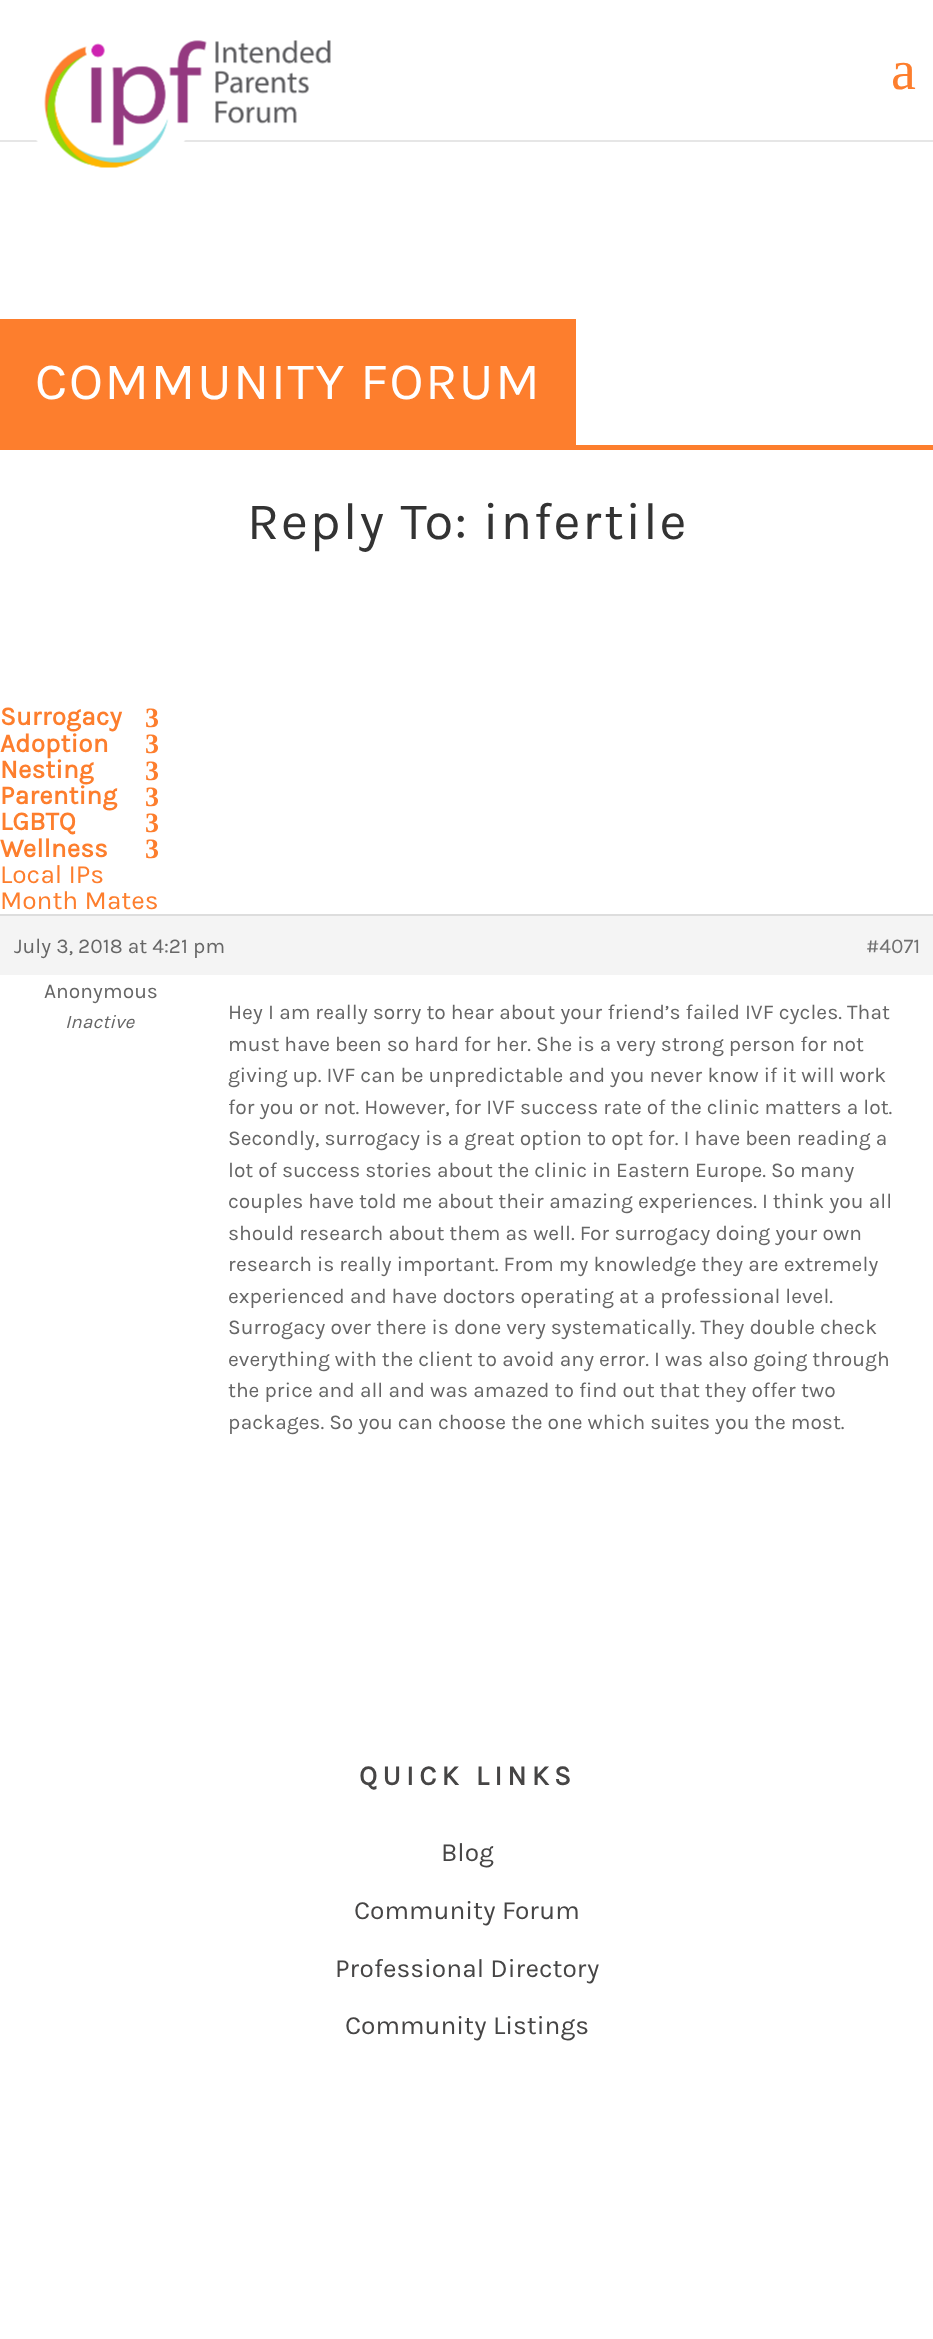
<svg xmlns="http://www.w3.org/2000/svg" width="933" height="2339">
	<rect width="100%" height="100%" fill="#FFFFFF" />
	<path d="M0 140V142H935V2H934V140Z" fill="#E6E6E6" />
	<image x="36" y="40" width="295" height="128" href="assets/img1.png" />
	<text x="891" y="89" font-family="Liberation Serif" font-size="56" fill="#FD7E2D">a</text>
	<rect x="0" y="445" width="933" height="5" fill="#FD7E2D" />
	<rect x="0" y="319" width="576" height="126" fill="#FD7E2D" />
	<text x="35" y="399" font-family="Karla" font-size="52.5" letter-spacing="1.75" fill="#FFFFFF">COMMUNITY FORUM</text>
	<text x="247" y="539" font-family="Karla" font-size="52.5" letter-spacing="1.75" fill="#333333">Reply To: infertile</text>
	<text x="0" y="725" font-family="Karla" font-size="26.25" font-weight="700" fill="#FD7E2D">Surrogacy</text>
	<text x="145" y="727" font-family="Liberation Serif" font-size="28" font-weight="700" fill="#FD7E2D">3</text>
	<text x="0" y="752" font-family="Karla" font-size="26.25" font-weight="700" fill="#FD7E2D">Adoption</text>
	<text x="145" y="753" font-family="Liberation Serif" font-size="28" font-weight="700" fill="#FD7E2D">3</text>
	<text x="0" y="778" font-family="Karla" font-size="26.25" font-weight="700" fill="#FD7E2D">Nesting</text>
	<text x="145" y="780" font-family="Liberation Serif" font-size="28" font-weight="700" fill="#FD7E2D">3</text>
	<text x="0" y="804" font-family="Karla" font-size="26.25" font-weight="700" fill="#FD7E2D">Parenting</text>
	<text x="145" y="806" font-family="Liberation Serif" font-size="28" font-weight="700" fill="#FD7E2D">3</text>
	<text x="0" y="830" font-family="Karla" font-size="26.25" font-weight="700" fill="#FD7E2D">LGBTQ</text>
	<text x="145" y="832" font-family="Liberation Serif" font-size="28" font-weight="700" fill="#FD7E2D">3</text>
	<text x="0" y="857" font-family="Karla" font-size="26.25" font-weight="700" fill="#FD7E2D">Wellness</text>
	<text x="145" y="858" font-family="Liberation Serif" font-size="28" font-weight="700" fill="#FD7E2D">3</text>
	<g font-family="Karla" font-size="26.25" fill="#FD7E2D">
		<text x="0" y="883">Local IPs</text>
		<text x="0" y="909">Month Mates</text>
	</g>
	<rect x="0" y="916" width="933" height="59" fill="#F4F4F4" />
	<rect x="0" y="914" width="933" height="2" fill="#DDDDDD" />
	<text x="14" y="953" font-family="Karla" font-size="21" fill="#666666">July 3, 2018 at 4:21 pm</text>
	<text x="866" y="953" font-family="Karla" font-size="21" fill="#707070">#4071</text>
	<text x="44" y="998" font-family="Karla" font-size="21" fill="#666666">Anonymous</text>
	<text x="65" y="1028" font-family="Karla" font-size="19" font-style="italic" fill="#666666">Inactive</text>
	<g font-family="Karla" font-size="21" fill="#666666">
		<text x="228" y="1019">Hey I am really sorry to hear about your friend’s failed IVF cycles. That</text>
		<text x="228" y="1051">must have been so hard for her. She is a very strong person for not</text>
		<text x="228" y="1082">giving up. IVF can be unpredictable and you never know if it will work</text>
		<text x="228" y="1114">for you or not. However, for IVF success rate of the clinic matters a lot.</text>
		<text x="228" y="1145">Secondly, surrogacy is a great option to opt for. I have been reading a</text>
		<text x="228" y="1177">lot of success stories about the clinic in Eastern Europe. So many</text>
		<text x="228" y="1208">couples have told me about their amazing experiences. I think you all</text>
		<text x="228" y="1240">should research about them as well. For surrogacy doing your own</text>
		<text x="228" y="1271">research is really important. From my knowledge they are extremely</text>
		<text x="228" y="1303">experienced and have doctors operating at a professional level.</text>
		<text x="228" y="1334">Surrogacy over there is done very systematically. They double check</text>
		<text x="228" y="1366">everything with the client to avoid any error. I was also going through</text>
		<text x="228" y="1397">the price and all and was amazed to find out that they offer two</text>
		<text x="228" y="1429">packages. So you can choose the one which suites you the most.</text>
	</g>
	<text x="359" y="1785" font-family="Karla" font-size="28" font-weight="700" letter-spacing="5.25" fill="#464545">QUICK LINKS</text>
	<g font-family="Karla" font-size="26.25" fill="#464545">
		<text x="441" y="1861">Blog</text>
		<text x="354" y="1919">Community Forum</text>
		<text x="335" y="1977">Professional Directory</text>
		<text x="345" y="2034">Community Listings</text>
	</g>
</svg>
